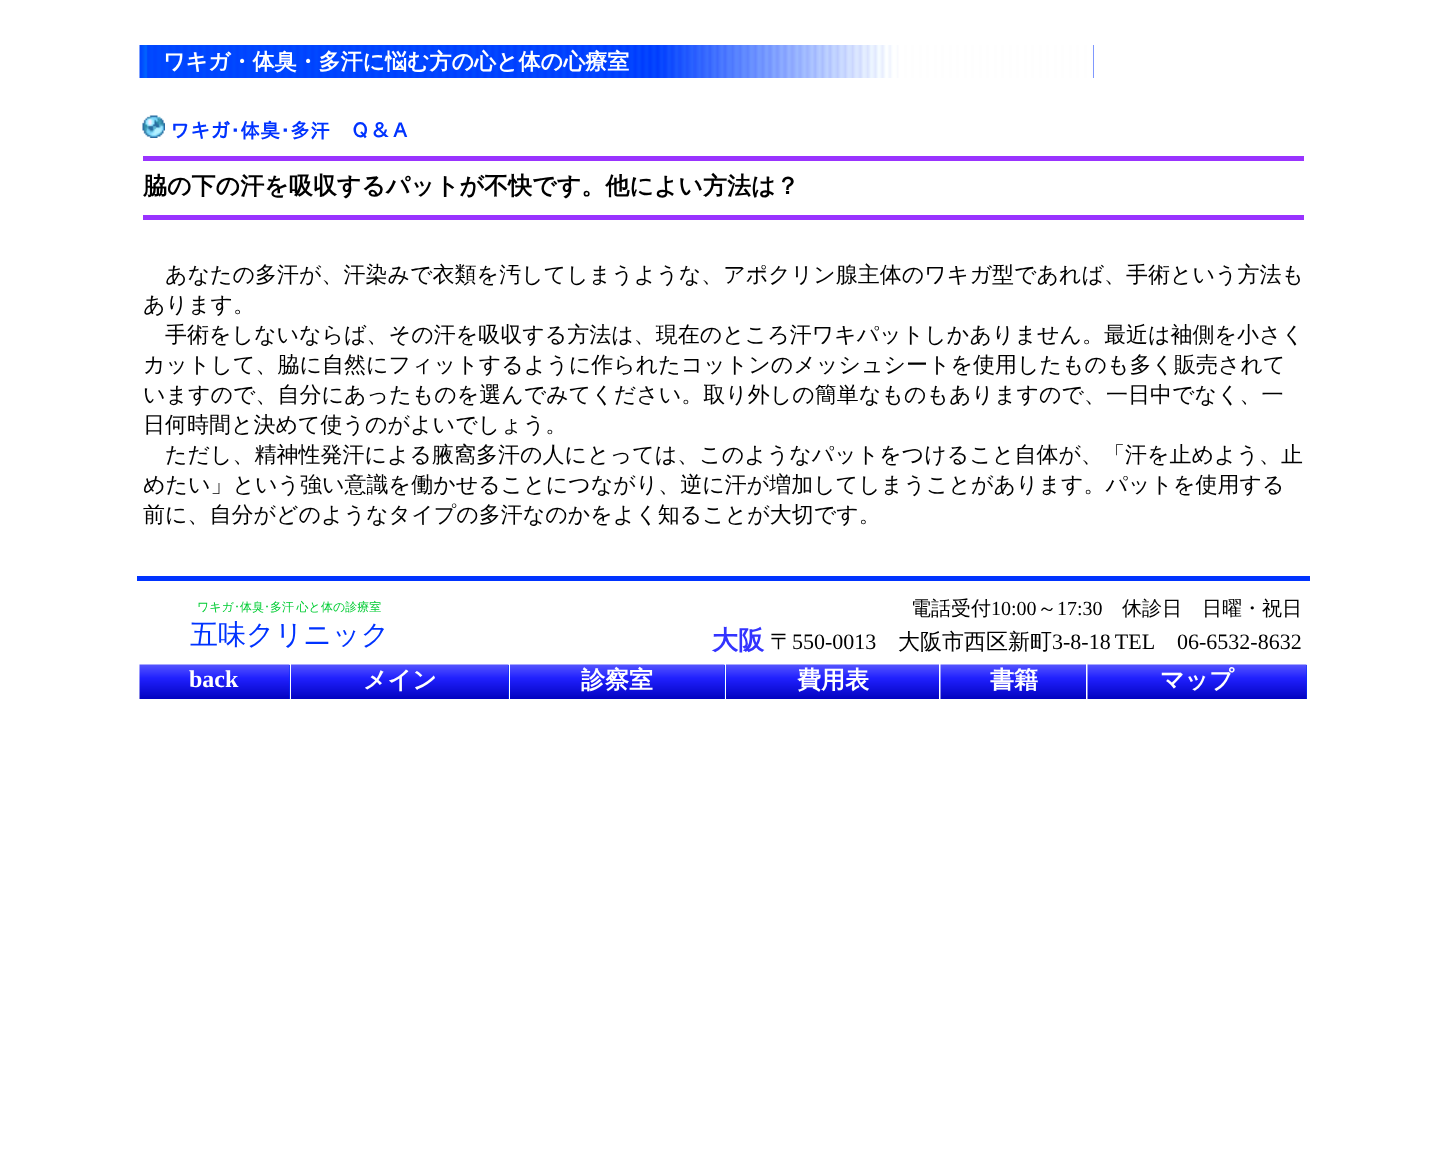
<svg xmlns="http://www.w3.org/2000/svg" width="1446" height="1168">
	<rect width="100%" height="100%" fill="#FFFFFF" />
	<rect x="1093" y="45" width="1" height="33" fill="#0033FF" />
	<image x="139" y="45" width="955" height="33" href="assets/img1.png" />
	<text x="163" y="69" font-family="WenQuanYi Zen Hei" font-size="22" font-weight="700" fill="#FFFFFF">ワキガ・体臭・多汗に悩む方の心と体の心療室</text>
	<image x="142" y="115" width="23" height="23" href="assets/img2.png" />
	<text x="170" y="138" font-family="IPAGothic" font-size="20" font-weight="700" fill="#0033FF">ワキガ･体臭･多汗　Ｑ＆Ａ</text>
	<rect x="143" y="156" width="1161" height="5" fill="#9933FF" />
	<text x="143" y="194" font-family="WenQuanYi Zen Hei" font-size="24" font-weight="700" fill="#000000">脇の下の汗を吸収するパットが不快です。他によい方法は？</text>
	<rect x="143" y="215" width="1161" height="5" fill="#9933FF" />
	<g font-family="WenQuanYi Zen Hei" font-size="22" font-weight="500" fill="#000000">
		<text x="165" y="282">あなたの多汗が、汗染みで衣類を汚してしまうような、アポクリン腺主体のワキガ型であれば、手術という方法も</text>
		<text x="143" y="312">あります。</text>
		<text x="165" y="342">手術をしないならば、その汗を吸収する方法は、現在のところ汗ワキパットしかありません。最近は袖側を小さく</text>
		<text x="143" y="372">カットして、脇に自然にフィットするように作られたコットンのメッシュシートを使用したものも多く販売されて</text>
		<text x="143" y="402">いますので、自分にあったものを選んでみてください。取り外しの簡単なものもありますので、一日中でなく、一</text>
		<text x="143" y="432">日何時間と決めて使うのがよいでしょう。</text>
		<text x="165" y="462">ただし、精神性発汗による腋窩多汗の人にとっては、このようなパットをつけること自体が、「汗を止めよう、止</text>
		<text x="143" y="492">めたい」という強い意識を働かせることにつながり、逆に汗が増加してしまうことがあります。パットを使用する</text>
		<text x="143" y="522">前に、自分がどのようなタイプの多汗なのかをよく知ることが大切です。</text>
	</g>
	<rect x="137" y="576" width="1173" height="5" fill="#0033FF" />
	<text x="197" y="611" font-family="WenQuanYi Zen Hei" font-size="12" font-weight="500" fill="#00CC33">ワキガ</text>
	<text x="234" y="611" font-family="IPAGothic" font-size="12" fill="#00CC33">･</text>
	<text x="240" y="611" font-family="WenQuanYi Zen Hei" font-size="12" font-weight="500" fill="#00CC33">体臭</text>
	<text x="264" y="611" font-family="IPAGothic" font-size="12" fill="#00CC33">･</text>
	<text x="270" y="611" word-spacing="-1" font-family="WenQuanYi Zen Hei" font-size="12" font-weight="500" fill="#00CC33">多汗 心と体の診療室</text>
	<text x="190" y="644" font-family="WenQuanYi Zen Hei" font-size="28" font-weight="500" fill="#0033FF">五味クリニック</text>
	<text x="911" y="615" font-family="WenQuanYi Zen Hei" font-size="20" font-weight="500" fill="#000000">電話受付</text>
	<text x="991" y="615" font-family="Liberation Serif" font-size="20" fill="#000000">10:00</text>
	<text x="1037" y="615" font-family="WenQuanYi Zen Hei" font-size="20" font-weight="500" fill="#000000">～</text>
	<text x="1057" y="615" font-family="Liberation Serif" font-size="20" fill="#000000">17:30</text>
	<text x="1122" y="615" font-family="WenQuanYi Zen Hei" font-size="20" font-weight="500" fill="#000000">休診日　日曜・祝日</text>
	<text x="712" y="649" font-family="WenQuanYi Zen Hei" font-size="26" font-weight="700" fill="#3333FF">大阪</text>
	<text x="770" y="649" font-family="WenQuanYi Zen Hei" font-size="22" font-weight="500" fill="#000000">〒</text>
	<text x="792" y="649" font-family="Liberation Serif" font-size="22" fill="#000000">550-0013</text>
	<text x="898" y="649" font-family="WenQuanYi Zen Hei" font-size="22" font-weight="500" fill="#000000">大阪市西区新町</text>
	<g font-family="Liberation Serif" font-size="22" fill="#000000">
		<text x="1052" y="649" word-spacing="-1">3-8-18 TEL</text>
		<text x="1177" y="649">06-6532-8632</text>
	</g>
	<rect x="289" y="665" width="1" height="34" fill="#0033FF" />
	<image x="139" y="664" width="151" height="35" href="assets/img3.png" />
	<text x="189" y="687" font-family="Liberation Serif" font-size="24" font-weight="700" fill="#FFFFFF">back</text>
	<rect x="508" y="665" width="1" height="34" fill="#0033FF" />
	<image x="291" y="664" width="218" height="35" href="assets/img4.png" />
	<text x="363" y="688" font-family="WenQuanYi Zen Hei" font-size="24" font-weight="700" fill="#FFFFFF">メイン</text>
	<rect x="724" y="665" width="1" height="34" fill="#0033FF" />
	<image x="510" y="664" width="215" height="35" href="assets/img5.png" />
	<text x="581" y="688" font-family="WenQuanYi Zen Hei" font-size="24" font-weight="700" fill="#FFFFFF">診察室</text>
	<image x="726" y="664" width="213" height="35" href="assets/img6.png" />
	<text x="797" y="688" font-family="WenQuanYi Zen Hei" font-size="24" font-weight="700" fill="#FFFFFF">費用表</text>
	<image x="940" y="664" width="146" height="35" href="assets/img7.png" />
	<text x="990" y="688" font-family="WenQuanYi Zen Hei" font-size="24" font-weight="700" fill="#FFFFFF">書籍</text>
	<rect x="1306" y="665" width="1" height="34" fill="#0033FF" />
	<image x="1087" y="664" width="220" height="35" href="assets/img8.png" />
	<text x="1160" y="688" font-family="WenQuanYi Zen Hei" font-size="24" font-weight="700" fill="#FFFFFF">マップ</text>
</svg>
